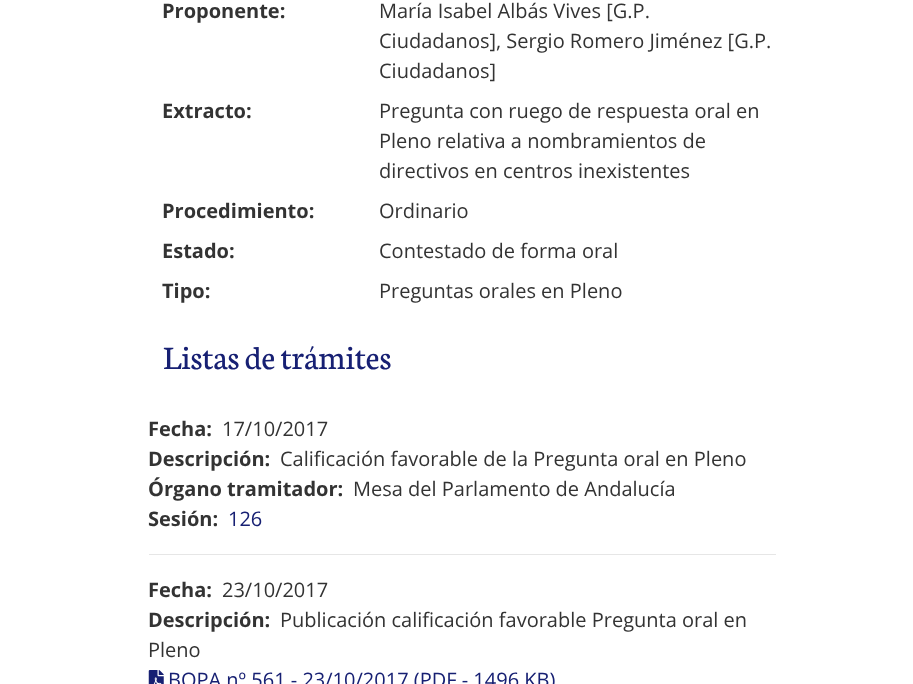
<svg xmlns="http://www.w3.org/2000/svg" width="913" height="684">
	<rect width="100%" height="100%" fill="#FFFFFF" />
	<text x="162" y="18" font-family="Open Sans" font-size="20" font-weight="700" fill="#333333">Proponente:</text>
	<g font-family="Open Sans" font-size="20" fill="#333333">
		<text x="379" y="18">María Isabel Albás Vives [G.P.</text>
		<text x="379" y="48">Ciudadanos], Sergio Romero Jiménez [G.P.</text>
		<text x="379" y="78">Ciudadanos]</text>
	</g>
	<text x="162" y="118" font-family="Open Sans" font-size="20" font-weight="700" fill="#333333">Extracto:</text>
	<g font-family="Open Sans" font-size="20" fill="#333333">
		<text x="379" y="118">Pregunta con ruego de respuesta oral en</text>
		<text x="379" y="148">Pleno relativa a nombramientos de</text>
		<text x="379" y="178">directivos en centros inexistentes</text>
	</g>
	<text x="162" y="218" font-family="Open Sans" font-size="20" font-weight="700" fill="#333333">Procedimiento:</text>
	<text x="379" y="218" font-family="Open Sans" font-size="20" fill="#333333">Ordinario</text>
	<text x="162" y="258" font-family="Open Sans" font-size="20" font-weight="700" fill="#333333">Estado:</text>
	<text x="379" y="258" font-family="Open Sans" font-size="20" fill="#333333">Contestado de forma oral</text>
	<text x="162" y="298" font-family="Open Sans" font-size="20" font-weight="700" fill="#333333">Tipo:</text>
	<text x="379" y="298" font-family="Open Sans" font-size="20" fill="#333333">Preguntas orales en Pleno</text>
	<text x="163" y="369" font-family="Neuton" font-size="35" fill="#172073">Listas de trámites</text>
	<text x="148" y="436" font-family="Open Sans" font-size="20" font-weight="700" fill="#333333">Fecha:</text>
	<text x="222" y="436" font-family="Open Sans" font-size="20" fill="#333333">17/10/2017</text>
	<text x="148" y="466" font-family="Open Sans" font-size="20" font-weight="700" fill="#333333">Descripción:</text>
	<text x="280" y="466" font-family="Open Sans" font-size="20" fill="#333333">Calificación favorable de la Pregunta oral en Pleno</text>
	<text x="148" y="496" font-family="Open Sans" font-size="20" font-weight="700" fill="#333333">Órgano tramitador:</text>
	<text x="353" y="496" font-family="Open Sans" font-size="20" fill="#333333">Mesa del Parlamento de Andalucía</text>
	<text x="148" y="526" font-family="Open Sans" font-size="20" font-weight="700" fill="#333333">Sesión:</text>
	<text x="228" y="526" font-family="Open Sans" font-size="20" fill="#172073">126</text>
	<rect x="149" y="554" width="627" height="1" fill="#E6E6E6" />
	<text x="148" y="597" font-family="Open Sans" font-size="20" font-weight="700" fill="#333333">Fecha:</text>
	<text x="222" y="597" font-family="Open Sans" font-size="20" fill="#333333">23/10/2017</text>
	<text x="148" y="627" font-family="Open Sans" font-size="20" font-weight="700" fill="#333333">Descripción:</text>
	<g font-family="Open Sans" font-size="20" fill="#333333">
		<text x="280" y="627">Publicación calificación favorable Pregunta oral en</text>
		<text x="148" y="657">Pleno</text>
	</g>
	<image x="148" y="670" width="16" height="14" href="assets/img1.png" />
	<text x="168" y="687" font-family="Open Sans" font-size="20" fill="#172073">BOPA nº 561 - 23/10/2017 (PDF - 1496 KB)</text>
</svg>
